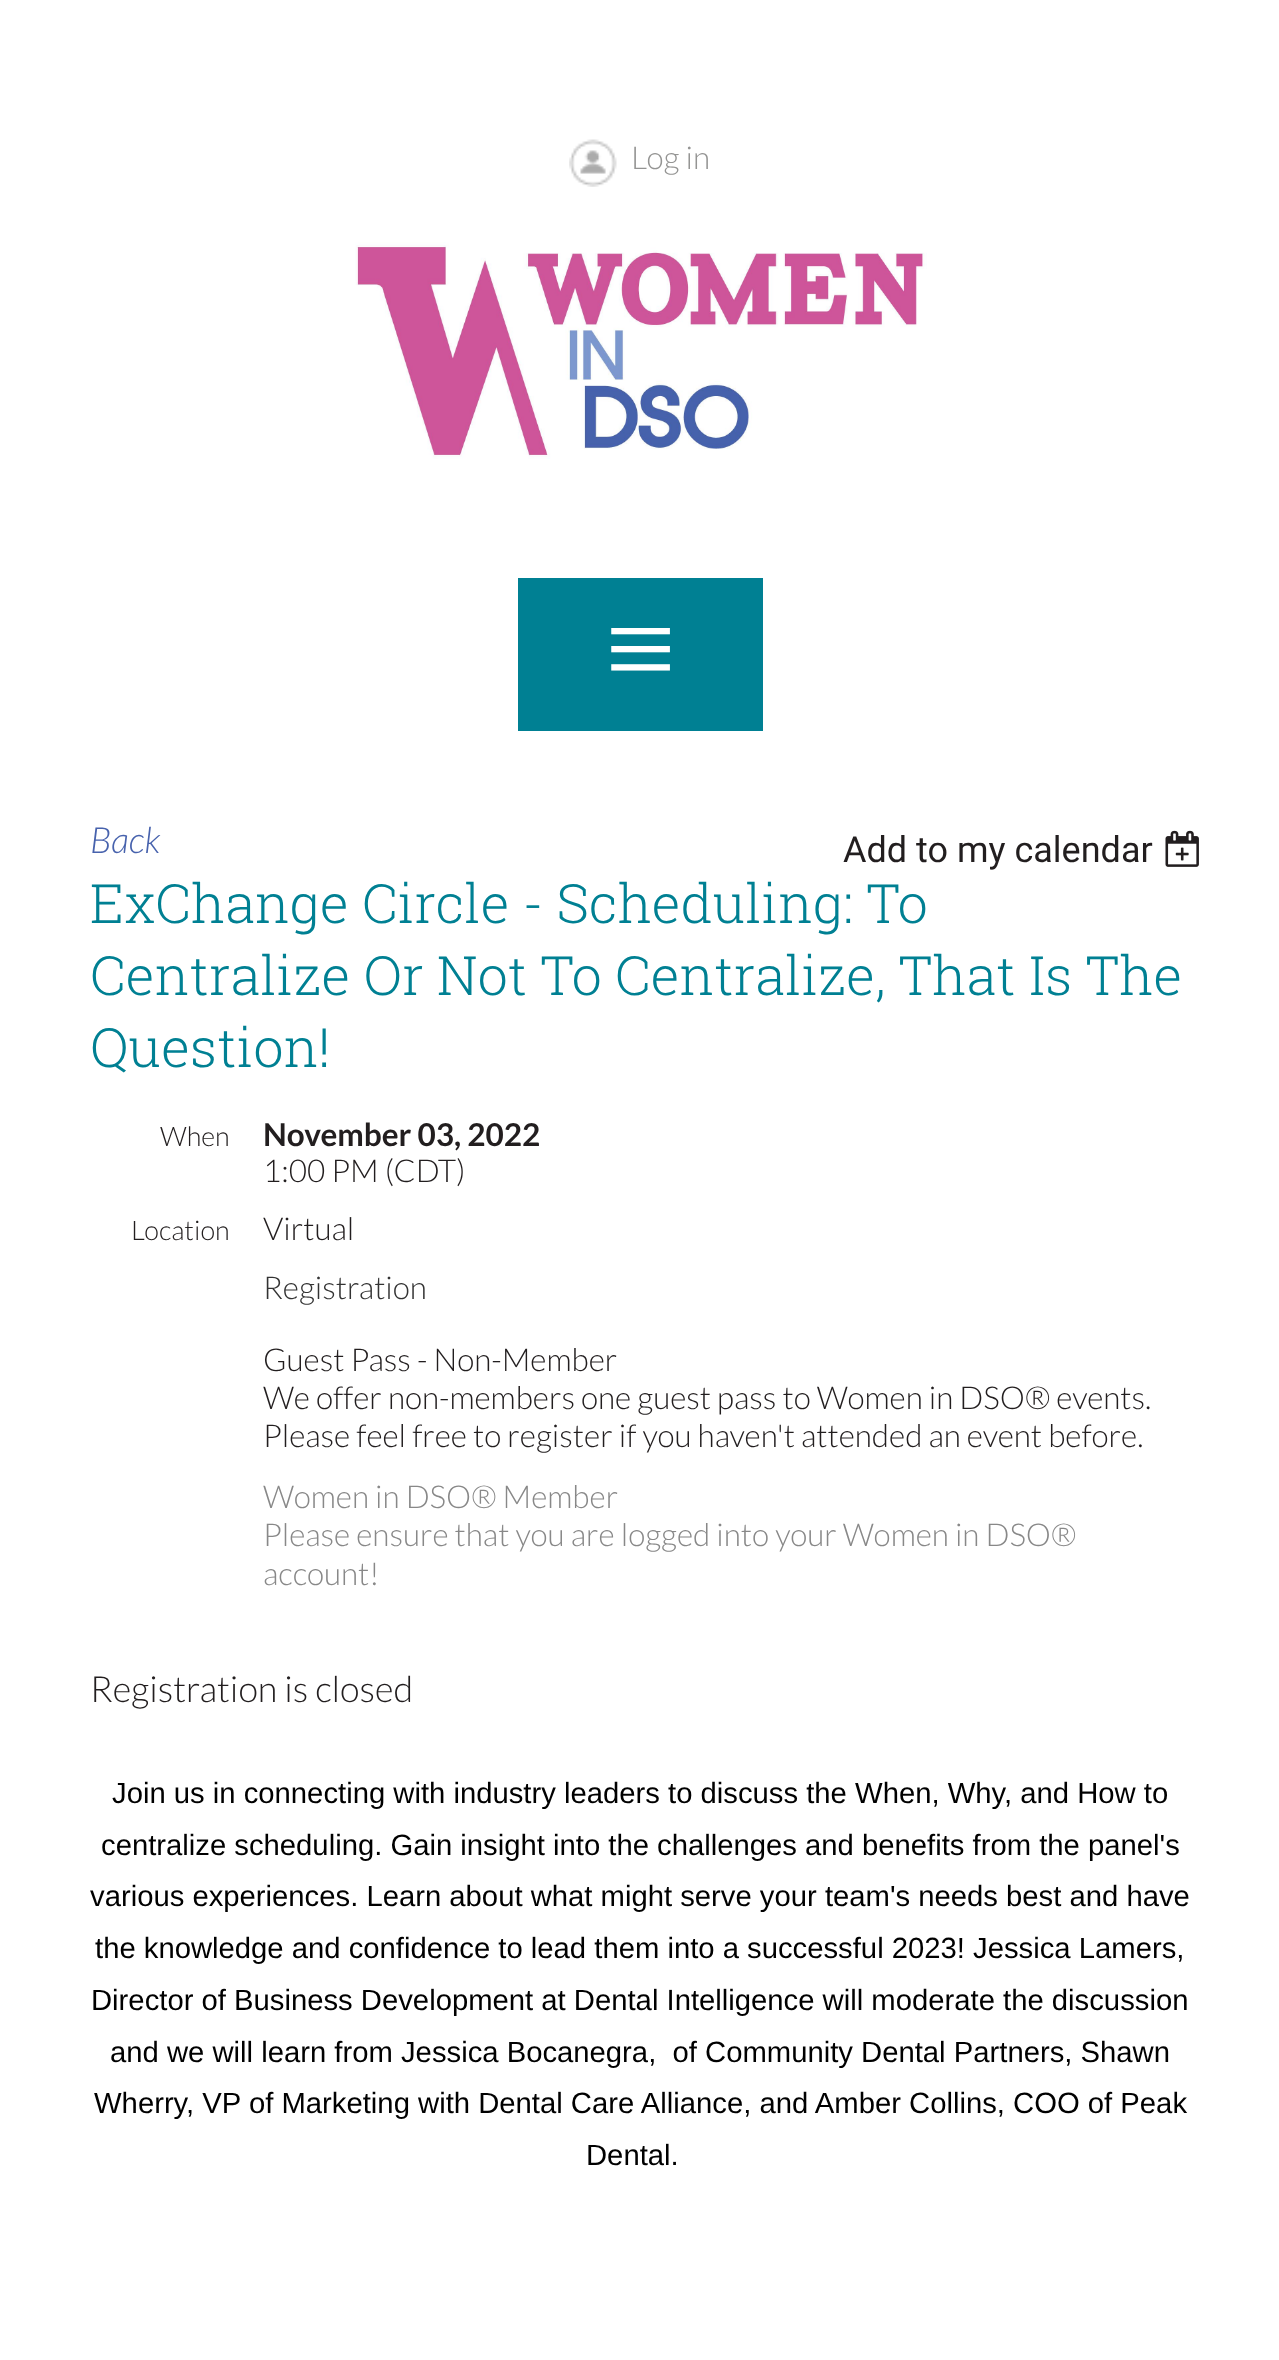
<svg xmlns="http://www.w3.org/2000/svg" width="1279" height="2360">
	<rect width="100%" height="100%" fill="#FFFFFF" />
	<image x="569" y="139" width="48" height="48" href="assets/img1.png" />
	<text x="631" y="169" font-family="Lato" font-size="31.5" font-weight="300" fill="#949493">Log in</text>
	<image x="355" y="242" width="572" height="217" href="assets/img2.png" />
	<rect x="518" y="578" width="245" height="153" fill="#008093" />
	<text x="605" y="691" font-family="Liberation Serif" font-size="126" fill="#FFFFFF">≡</text>
	<text x="90" y="853" font-family="Lato" font-size="36" font-weight="300" font-style="italic" fill="#4762AD">Back</text>
	<text x="843" y="862" font-family="Roboto" font-size="36" fill="#221E1F">Add to my calendar</text>
	<image x="1165" y="830" width="34" height="37" href="assets/img3.png" />
	<g font-family="Roboto Slab" font-size="54" font-weight="300" fill="#008093">
		<text x="90" y="923">ExChange Circle - Scheduling: To</text>
		<text x="90" y="995">Centralize Or Not To Centralize, That Is The</text>
		<text x="90" y="1067">Question!</text>
	</g>
	<text x="160" y="1146" font-family="Lato" font-size="27" font-weight="300" fill="#221E1F">When</text>
	<text x="263" y="1146" font-family="Lato" font-size="31.5" font-weight="700" fill="#221E1F">November 03, 2022</text>
	<text x="263" y="1182" font-family="Lato" font-size="31.5" font-weight="300" fill="#221E1F">1:00 PM (CDT)</text>
	<text x="131" y="1240" font-family="Lato" font-size="27" font-weight="300" fill="#221E1F">Location</text>
	<text x="263" y="1240" font-family="Lato" font-size="31.5" font-weight="300" fill="#221E1F">Virtual</text>
	<text x="263" y="1299" font-family="Lato" font-size="31.5" font-weight="300" fill="#333333">Registration</text>
	<g font-family="Lato" font-size="31.5" font-weight="300" fill="#221E1F">
		<text x="263" y="1371">Guest Pass - Non-Member</text>
		<text x="263" y="1409">We offer non-members one guest pass to Women in DSO® events.</text>
		<text x="263" y="1447">Please feel free to register if you haven't attended an event before.</text>
	</g>
	<g font-family="Lato" font-size="31.5" font-weight="300" fill="#888888">
		<text x="263" y="1508">Women in DSO® Member</text>
		<text x="263" y="1546">Please ensure that you are logged into your Women in DSO®</text>
		<text x="263" y="1585">account!</text>
	</g>
	<text x="90" y="1702" font-family="Lato" font-size="36" font-weight="300" fill="#221E1F">Registration is closed</text>
	<g font-family="Liberation Sans" font-size="29.25" fill="#000000">
		<text x="112" y="1803">Join us in connecting with industry leaders to discuss the When, Why, and How to</text>
		<text x="101" y="1855">centralize scheduling. Gain insight into the challenges and benefits from the panel's</text>
		<text x="90" y="1906">various experiences. Learn about what might serve your team's needs best and have</text>
		<text x="95" y="1958">the knowledge and confidence to lead them into a successful 2023! Jessica Lamers,</text>
		<text x="91" y="2010">Director of Business Development at Dental Intelligence will moderate the discussion</text>
		<text x="110" y="2062" xml:space="preserve">and we will learn from Jessica Bocanegra,  of Community Dental Partners, Shawn</text>
		<text x="94" y="2113">Wherry, VP of Marketing with Dental Care Alliance, and Amber Collins, COO of Peak</text>
		<text x="586" y="2165">Dental.</text>
	</g>
</svg>
